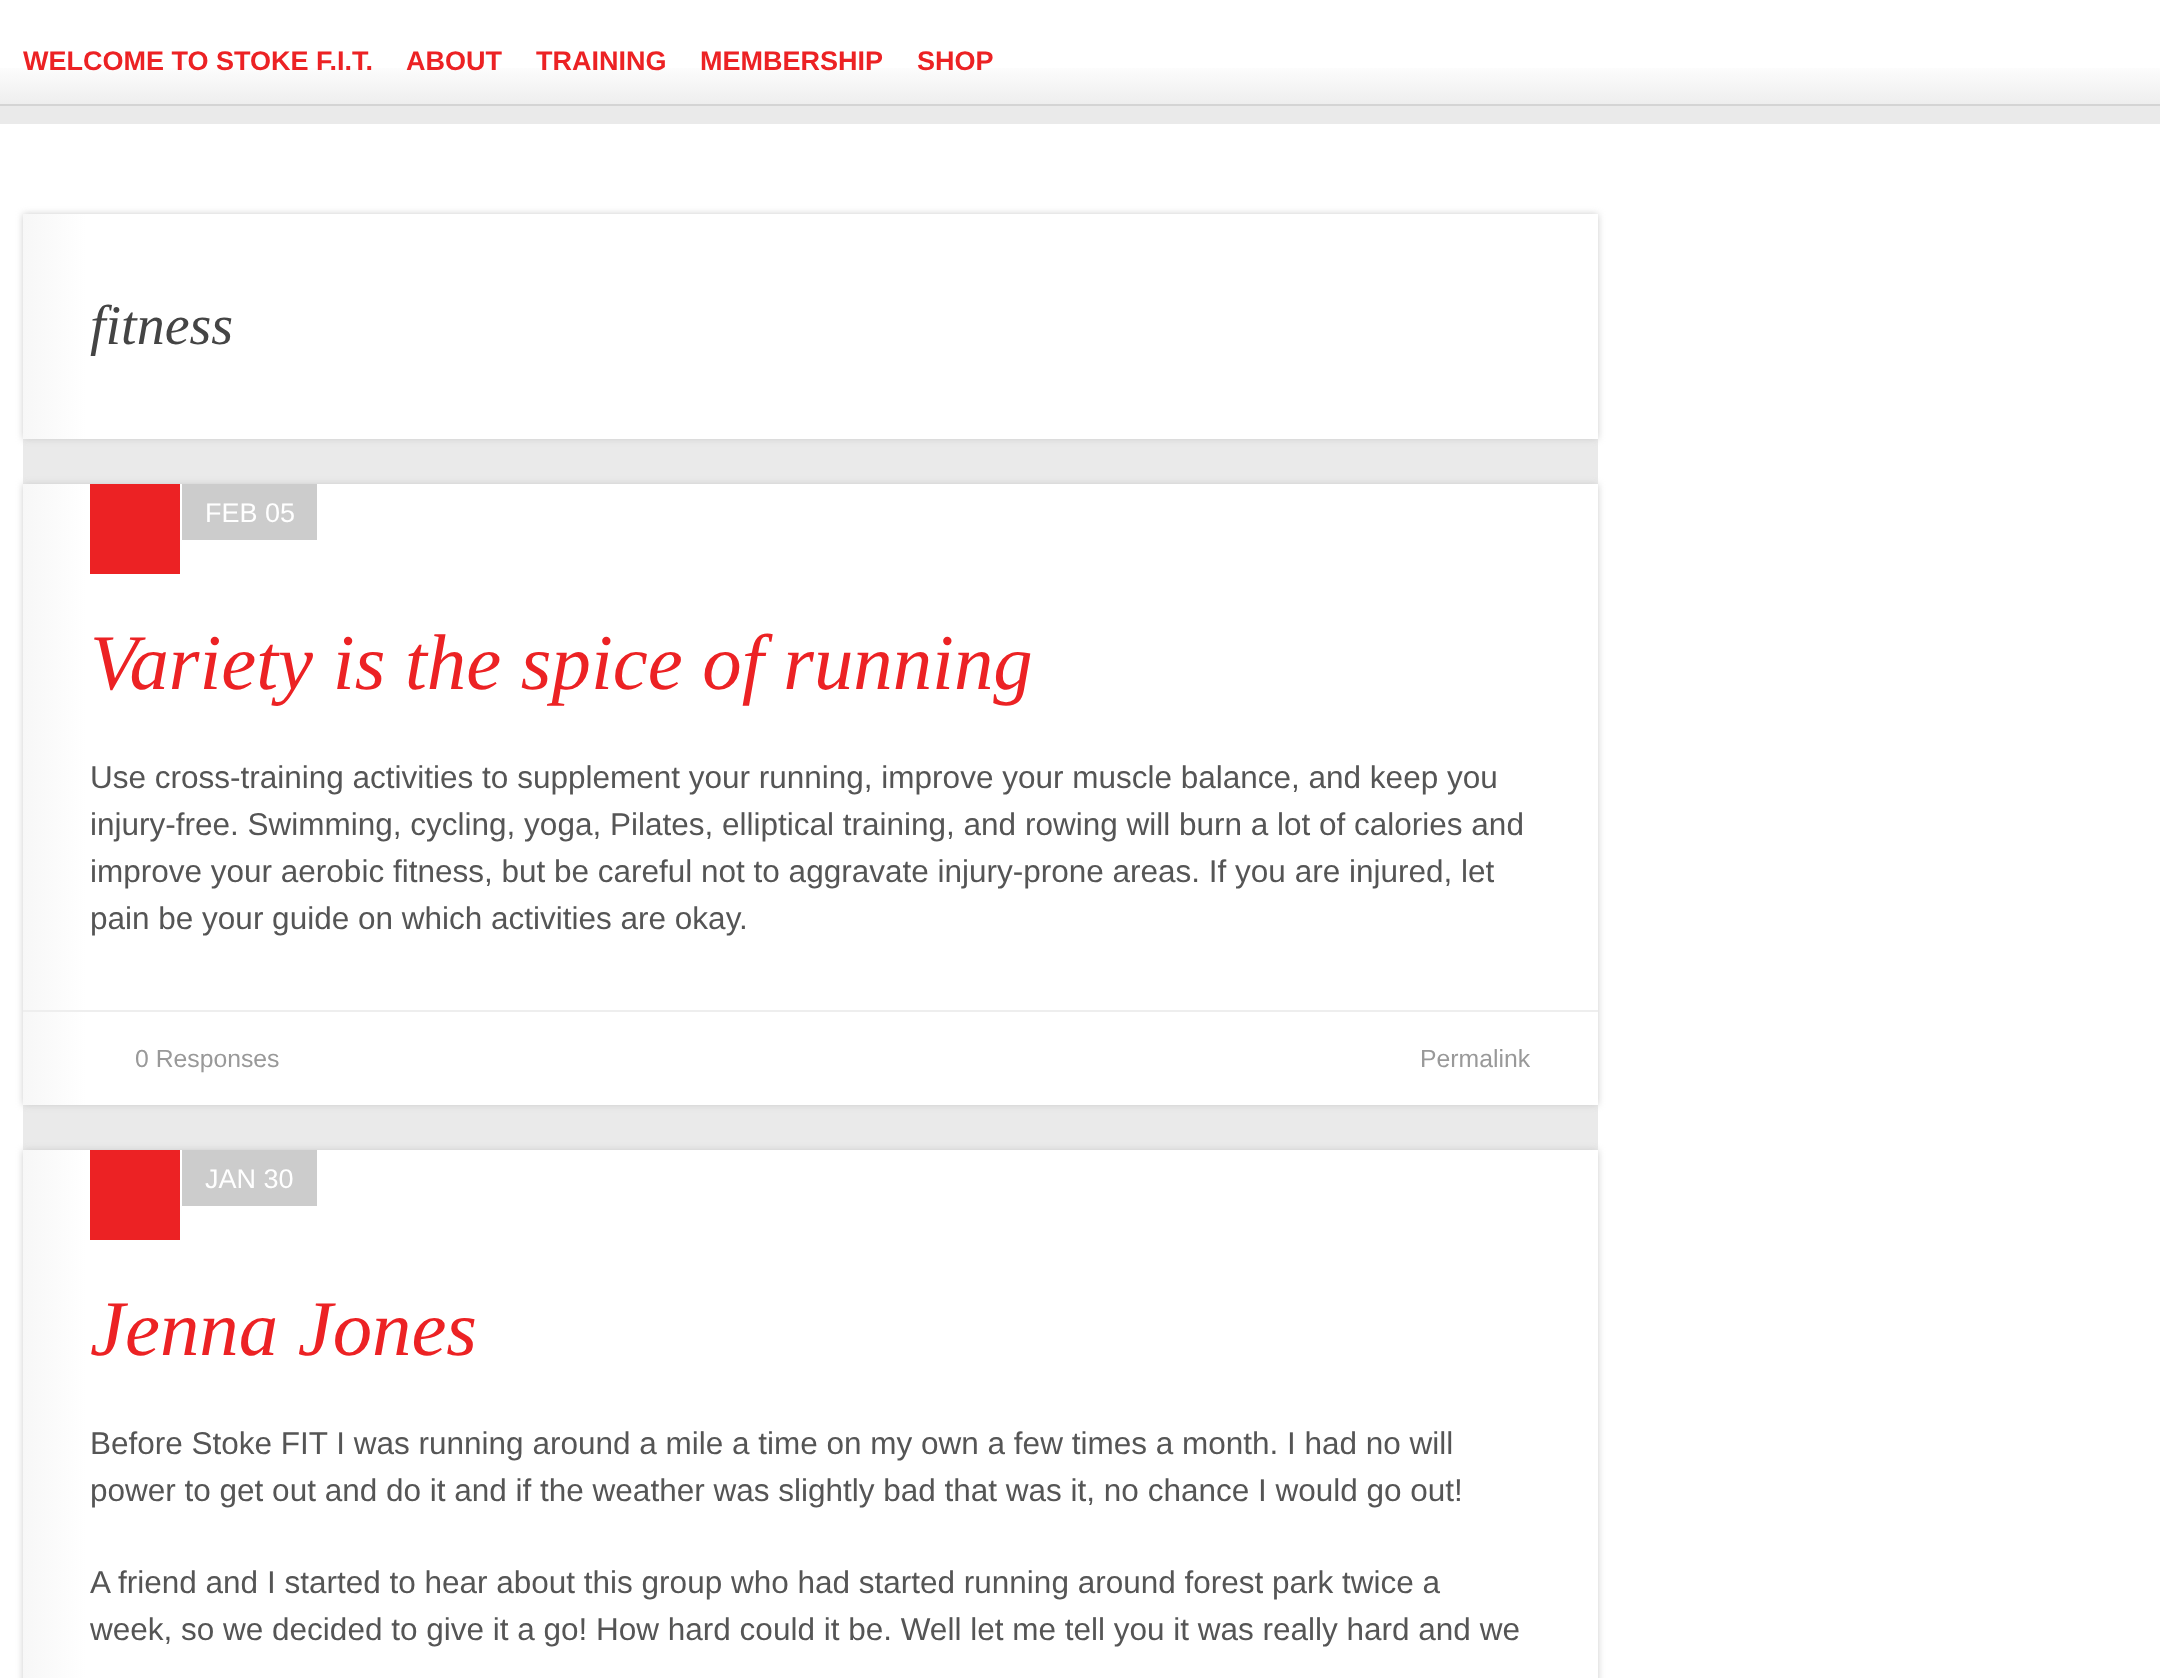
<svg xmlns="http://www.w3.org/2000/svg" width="2160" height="1678">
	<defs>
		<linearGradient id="g1" gradientUnits="userSpaceOnUse" x1="1080" y1="-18" x2="1080" y2="104"><stop offset="0" stop-color="#FFFFFF" /><stop offset="0.65" stop-color="#FFFFFF" /><stop offset="1" stop-color="#EEEEEE" /></linearGradient>
		<linearGradient id="g2" gradientUnits="userSpaceOnUse" x1="23" y1="326" x2="1598" y2="326"><stop offset="0" stop-color="#F7F7F7" /><stop offset="0.04" stop-color="#FFFFFF" /><stop offset="1" stop-color="#FFFFFF" /></linearGradient>
		<linearGradient id="g3" gradientUnits="userSpaceOnUse" x1="23" y1="794" x2="1598" y2="794"><stop offset="0" stop-color="#F7F7F7" /><stop offset="0.04" stop-color="#FFFFFF" /><stop offset="1" stop-color="#FFFFFF" /></linearGradient>
		<linearGradient id="g4" gradientUnits="userSpaceOnUse" x1="23" y1="1506" x2="1598" y2="1506"><stop offset="0" stop-color="#F7F7F7" /><stop offset="0.04" stop-color="#FFFFFF" /><stop offset="1" stop-color="#FFFFFF" /></linearGradient>
	</defs>
	<rect width="100%" height="100%" fill="#FFFFFF" />
	<rect x="0" y="106" width="2160" height="18" fill="#EAEAEA" />
	<rect x="0" y="68" width="2160" height="36" fill="url(#g1)" />
	<rect x="0" y="104" width="2160" height="2" fill="#D4D4D4" />
	<g font-family="Liberation Sans" font-size="27" font-weight="700" fill="#EC2224">
		<text x="23" y="70">WELCOME TO STOKE F.I.T.</text>
		<text x="406" y="70">ABOUT</text>
		<text x="536" y="70">TRAINING</text>
		<text x="700" y="70">MEMBERSHIP</text>
		<text x="917" y="70">SHOP</text>
	</g>
	<rect x="23" y="439" width="1575" height="711" fill="#EAEAEA" />
	<rect x="23" y="214" width="1575" height="225" fill="#CCCCCC" filter="blur(3.5px)" />
	<rect x="23" y="214" width="1575" height="225" fill="url(#g2)" />
	<text x="90" y="344" font-family="Liberation Serif" font-size="56" font-style="italic" fill="#444444">fitness</text>
	<rect x="23" y="484" width="1575" height="621" fill="#CCCCCC" filter="blur(3.5px)" />
	<rect x="23" y="484" width="1575" height="621" fill="url(#g3)" />
	<rect x="90" y="484" width="90" height="90" fill="#EC2224" />
	<rect x="182" y="484" width="135" height="56" fill="#CCCCCC" />
	<text x="205" y="522" font-family="Liberation Sans" font-size="27" fill="#FFFFFF">FEB 05</text>
	<text x="90" y="689" font-family="Liberation Serif" font-size="78.75" font-style="italic" fill="#EC2224">Variety is the spice of running</text>
	<g font-family="Liberation Sans" font-size="31.5" fill="#555555">
		<text x="90" y="788">Use cross-training activities to supplement your running, improve your muscle balance, and keep you</text>
		<text x="90" y="835">injury-free. Swimming, cycling, yoga, Pilates, elliptical training, and rowing will burn a lot of calories and</text>
		<text x="90" y="882">improve your aerobic fitness, but be careful not to aggravate injury-prone areas. If you are injured, let</text>
		<text x="90" y="929">pain be your guide on which activities are okay.</text>
	</g>
	<rect x="23" y="1010" width="1575" height="2" fill="#EEEEEE" />
	<g font-family="Liberation Sans" font-size="24.75" fill="#999999">
		<text x="135" y="1067">0 Responses</text>
		<text x="1420" y="1067">Permalink</text>
	</g>
	<rect x="23" y="1150" width="1575" height="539" fill="#CCCCCC" filter="blur(3.5px)" />
	<rect x="23" y="1150" width="1575" height="528" fill="url(#g4)" />
	<rect x="90" y="1150" width="90" height="90" fill="#EC2224" />
	<rect x="182" y="1150" width="135" height="56" fill="#CCCCCC" />
	<text x="205" y="1188" font-family="Liberation Sans" font-size="27" fill="#FFFFFF">JAN 30</text>
	<text x="90" y="1355" font-family="Liberation Serif" font-size="78.75" font-style="italic" fill="#EC2224">Jenna Jones</text>
	<g font-family="Liberation Sans" font-size="31.5" fill="#555555">
		<text x="90" y="1454">Before Stoke FIT I was running around a mile a time on my own a few times a month. I had no will</text>
		<text x="90" y="1501">power to get out and do it and if the weather was slightly bad that was it, no chance I would go out!</text>
		<text x="90" y="1593">A friend and I started to hear about this group who had started running around forest park twice a</text>
		<text x="90" y="1640">week, so we decided to give it a go! How hard could it be. Well let me tell you it was really hard and we</text>
	</g>
</svg>
